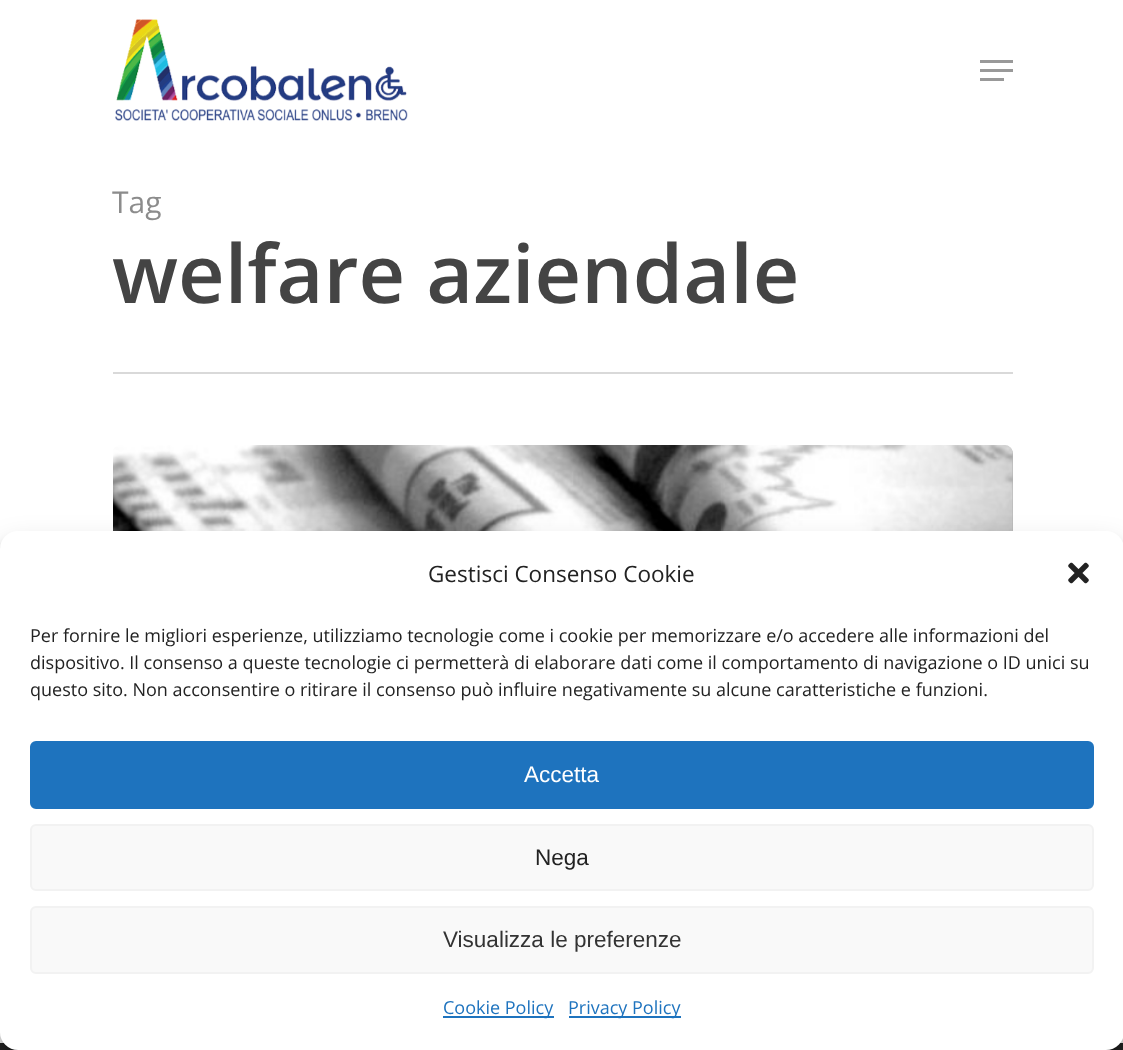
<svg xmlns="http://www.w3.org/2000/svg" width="1123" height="1050">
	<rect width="100%" height="100%" fill="#FFFFFF" />
	<image x="115" y="19" width="293" height="102" href="assets/img1.png" />
	<rect x="980" y="60" width="33" height="3" fill="#999999" />
	<rect x="980" y="78" width="24" height="3" fill="#999999" />
	<rect x="980" y="69" width="33" height="3" fill="#999999" />
	<rect x="113" y="372" width="900" height="2" fill="#D9D9D9" />
	<text x="112" y="213" font-family="Open Sans" font-size="30" fill="#8C8C8C">Tag</text>
	<text x="112" y="303" font-family="Open Sans" font-size="81" font-weight="600" fill="#444444">welfare aziendale</text>
	<rect x="113" y="446" width="900" height="525" rx="8" fill="#B3B3B3" />
	<image x="113" y="445" width="900" height="86" href="assets/img2.png" />
	<rect x="0" y="1043" width="1123" height="7" fill="#252525" />
	<rect x="0" y="540" width="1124" height="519" rx="18" fill="#000000" fill-opacity="0.23" filter="blur(4.5px)" />
	<rect x="0" y="546" width="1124" height="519" rx="18" fill="#000000" fill-opacity="0.19" filter="blur(15px)" />
	<rect x="0" y="531" width="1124" height="519" rx="18" fill="#FFFFFF" />
	<text x="428" y="582" font-family="Open Sans" font-size="22.5" fill="#222222">Gestisci Consenso Cookie</text>
	<image x="1068" y="562" width="21" height="22" href="assets/img3.png" />
	<g font-family="Open Sans" font-size="18" fill="#222222">
		<text x="30" y="642">Per fornire le migliori esperienze, utilizziamo tecnologie come i cookie per memorizzare e/o accedere alle informazioni del</text>
		<text x="30" y="669">dispositivo. Il consenso a queste tecnologie ci permetterà di elaborare dati come il comportamento di navigazione o ID unici su</text>
		<text x="30" y="696">questo sito. Non acconsentire o ritirare il consenso può influire negativamente su alcune caratteristiche e funzioni.</text>
	</g>
	<rect x="31" y="742" width="1062" height="66" rx="5" fill="#1E73BE" stroke="#1E73BE" stroke-width="2" />
	<text x="524" y="782" font-family="Liberation Sans" font-size="22.5" fill="#FFFFFF">Accetta</text>
	<rect x="31" y="825" width="1062" height="65" rx="5" fill="#F9F9F9" stroke="#F2F2F2" stroke-width="2" />
	<text x="535" y="865" font-family="Liberation Sans" font-size="22.5" fill="#222222">Nega</text>
	<rect x="31" y="907" width="1062" height="66" rx="5" fill="#F9F9F9" stroke="#F2F2F2" stroke-width="2" />
	<text x="443" y="947" font-family="Liberation Sans" font-size="22.5" fill="#333333">Visualizza le preferenze</text>
	<rect x="443" y="1016" width="111" height="2" fill="#1E73BE" />
	<text x="443" y="1014" font-family="Open Sans" font-size="18" fill="#1E73BE">Cookie Policy</text>
	<rect x="569" y="1016" width="112" height="2" fill="#1E73BE" />
	<text x="568" y="1014" font-family="Open Sans" font-size="18" fill="#1E73BE">Privacy Policy</text>
</svg>
